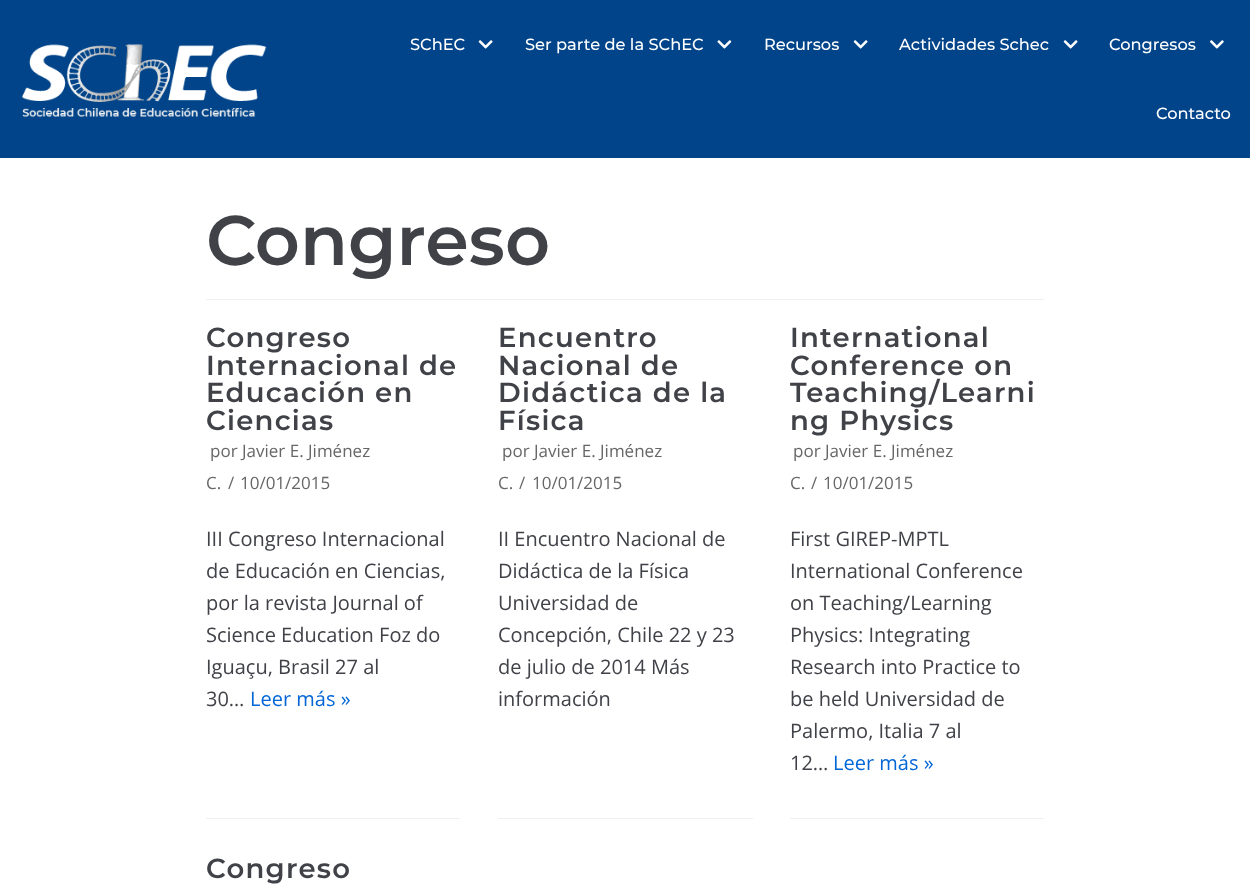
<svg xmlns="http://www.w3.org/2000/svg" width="1250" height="886">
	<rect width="100%" height="100%" fill="#FFFFFF" />
	<rect x="0" y="0" width="1250" height="158" fill="#014489" />
	<image x="22" y="44" width="245" height="73" href="assets/img1.png" />
	<text x="410" y="50" font-family="Montserrat" font-size="16.25" font-weight="500" fill="#FFFFFF">SChEC</text>
	<image x="478" y="40" width="15" height="9" href="assets/img2.png" />
	<text x="525" y="50" font-family="Montserrat" font-size="16.25" font-weight="500" fill="#FFFFFF">Ser parte de la SChEC</text>
	<image x="717" y="40" width="15" height="9" href="assets/img3.png" />
	<text x="764" y="50" font-family="Montserrat" font-size="16.25" font-weight="500" fill="#FFFFFF">Recursos</text>
	<image x="853" y="40" width="15" height="9" href="assets/img2.png" />
	<text x="899" y="50" font-family="Montserrat" font-size="16.25" font-weight="500" fill="#FFFFFF">Actividades Schec</text>
	<image x="1063" y="40" width="15" height="9" href="assets/img2.png" />
	<text x="1109" y="50" font-family="Montserrat" font-size="16.25" font-weight="500" fill="#FFFFFF">Congresos</text>
	<image x="1210" y="40" width="14" height="9" href="assets/img4.png" />
	<text x="1156" y="119" font-family="Montserrat" font-size="16.25" font-weight="500" fill="#FFFFFF">Contacto</text>
	<rect x="206" y="299" width="838" height="1" fill="#F0F0F0" />
	<text x="206" y="265" font-family="Montserrat" font-size="70" font-weight="600" fill="#404248">Congreso</text>
	<rect x="206" y="818" width="254" height="1" fill="#F0F0F0" />
	<g font-family="Montserrat" font-size="27.5" font-weight="600" letter-spacing="1.25" fill="#404248">
		<text x="206" y="347">Congreso</text>
		<text x="206" y="375">Internacional de</text>
		<text x="206" y="402">Educación en</text>
		<text x="206" y="430">Ciencias</text>
	</g>
	<g font-family="Open Sans" font-size="17" fill="#676767">
		<text x="210" y="457">por Javier E. Jiménez</text>
		<text x="206" y="489">C.</text>
		<text x="228" y="489">/</text>
		<text x="240" y="489">10/01/2015</text>
	</g>
	<g font-family="Open Sans" font-size="20" fill="#404248">
		<text x="206" y="546">III Congreso Internacional</text>
		<text x="206" y="578">de Educación en Ciencias,</text>
		<text x="206" y="610">por la revista Journal of</text>
		<text x="206" y="642">Science Education Foz do</text>
		<text x="206" y="674">Iguaçu, Brasil 27 al</text>
		<text x="206" y="706">30…</text>
	</g>
	<text x="250" y="706" font-family="Open Sans" font-size="20" fill="#0366D6">Leer más »</text>
	<rect x="498" y="818" width="255" height="1" fill="#F0F0F0" />
	<g font-family="Montserrat" font-size="27.5" font-weight="600" letter-spacing="1.25" fill="#404248">
		<text x="498" y="347">Encuentro</text>
		<text x="498" y="375">Nacional de</text>
		<text x="498" y="402">Didáctica de la</text>
		<text x="498" y="430">Física</text>
	</g>
	<g font-family="Open Sans" font-size="17" fill="#676767">
		<text x="502" y="457">por Javier E. Jiménez</text>
		<text x="498" y="489">C.</text>
		<text x="519" y="489">/</text>
		<text x="532" y="489">10/01/2015</text>
	</g>
	<g font-family="Open Sans" font-size="20" fill="#404248">
		<text x="498" y="546">II Encuentro Nacional de</text>
		<text x="498" y="578">Didáctica de la Física</text>
		<text x="498" y="610">Universidad de</text>
		<text x="498" y="642">Concepción, Chile 22 y 23</text>
		<text x="498" y="674">de julio de 2014 Más</text>
		<text x="498" y="706">información</text>
	</g>
	<rect x="790" y="818" width="254" height="1" fill="#F0F0F0" />
	<g font-family="Montserrat" font-size="27.5" font-weight="600" letter-spacing="1.25" fill="#404248">
		<text x="790" y="347">International</text>
		<text x="790" y="375">Conference on</text>
		<text x="790" y="402">Teaching/Learni</text>
		<text x="790" y="430">ng Physics</text>
	</g>
	<g font-family="Open Sans" font-size="17" fill="#676767">
		<text x="793" y="457">por Javier E. Jiménez</text>
		<text x="790" y="489">C.</text>
		<text x="811" y="489">/</text>
		<text x="823" y="489">10/01/2015</text>
	</g>
	<g font-family="Open Sans" font-size="20" fill="#404248">
		<text x="790" y="546">First GIREP-MPTL</text>
		<text x="790" y="578">International Conference</text>
		<text x="790" y="610">on Teaching/Learning</text>
		<text x="790" y="642">Physics: Integrating</text>
		<text x="790" y="674">Research into Practice to</text>
		<text x="790" y="706">be held Universidad de</text>
		<text x="790" y="738">Palermo, Italia 7 al</text>
		<text x="790" y="770">12…</text>
	</g>
	<text x="833" y="770" font-family="Open Sans" font-size="20" fill="#0366D6">Leer más »</text>
	<text x="206" y="878" font-family="Montserrat" font-size="27.5" font-weight="600" letter-spacing="1.25" fill="#404248">Congreso</text>
</svg>
